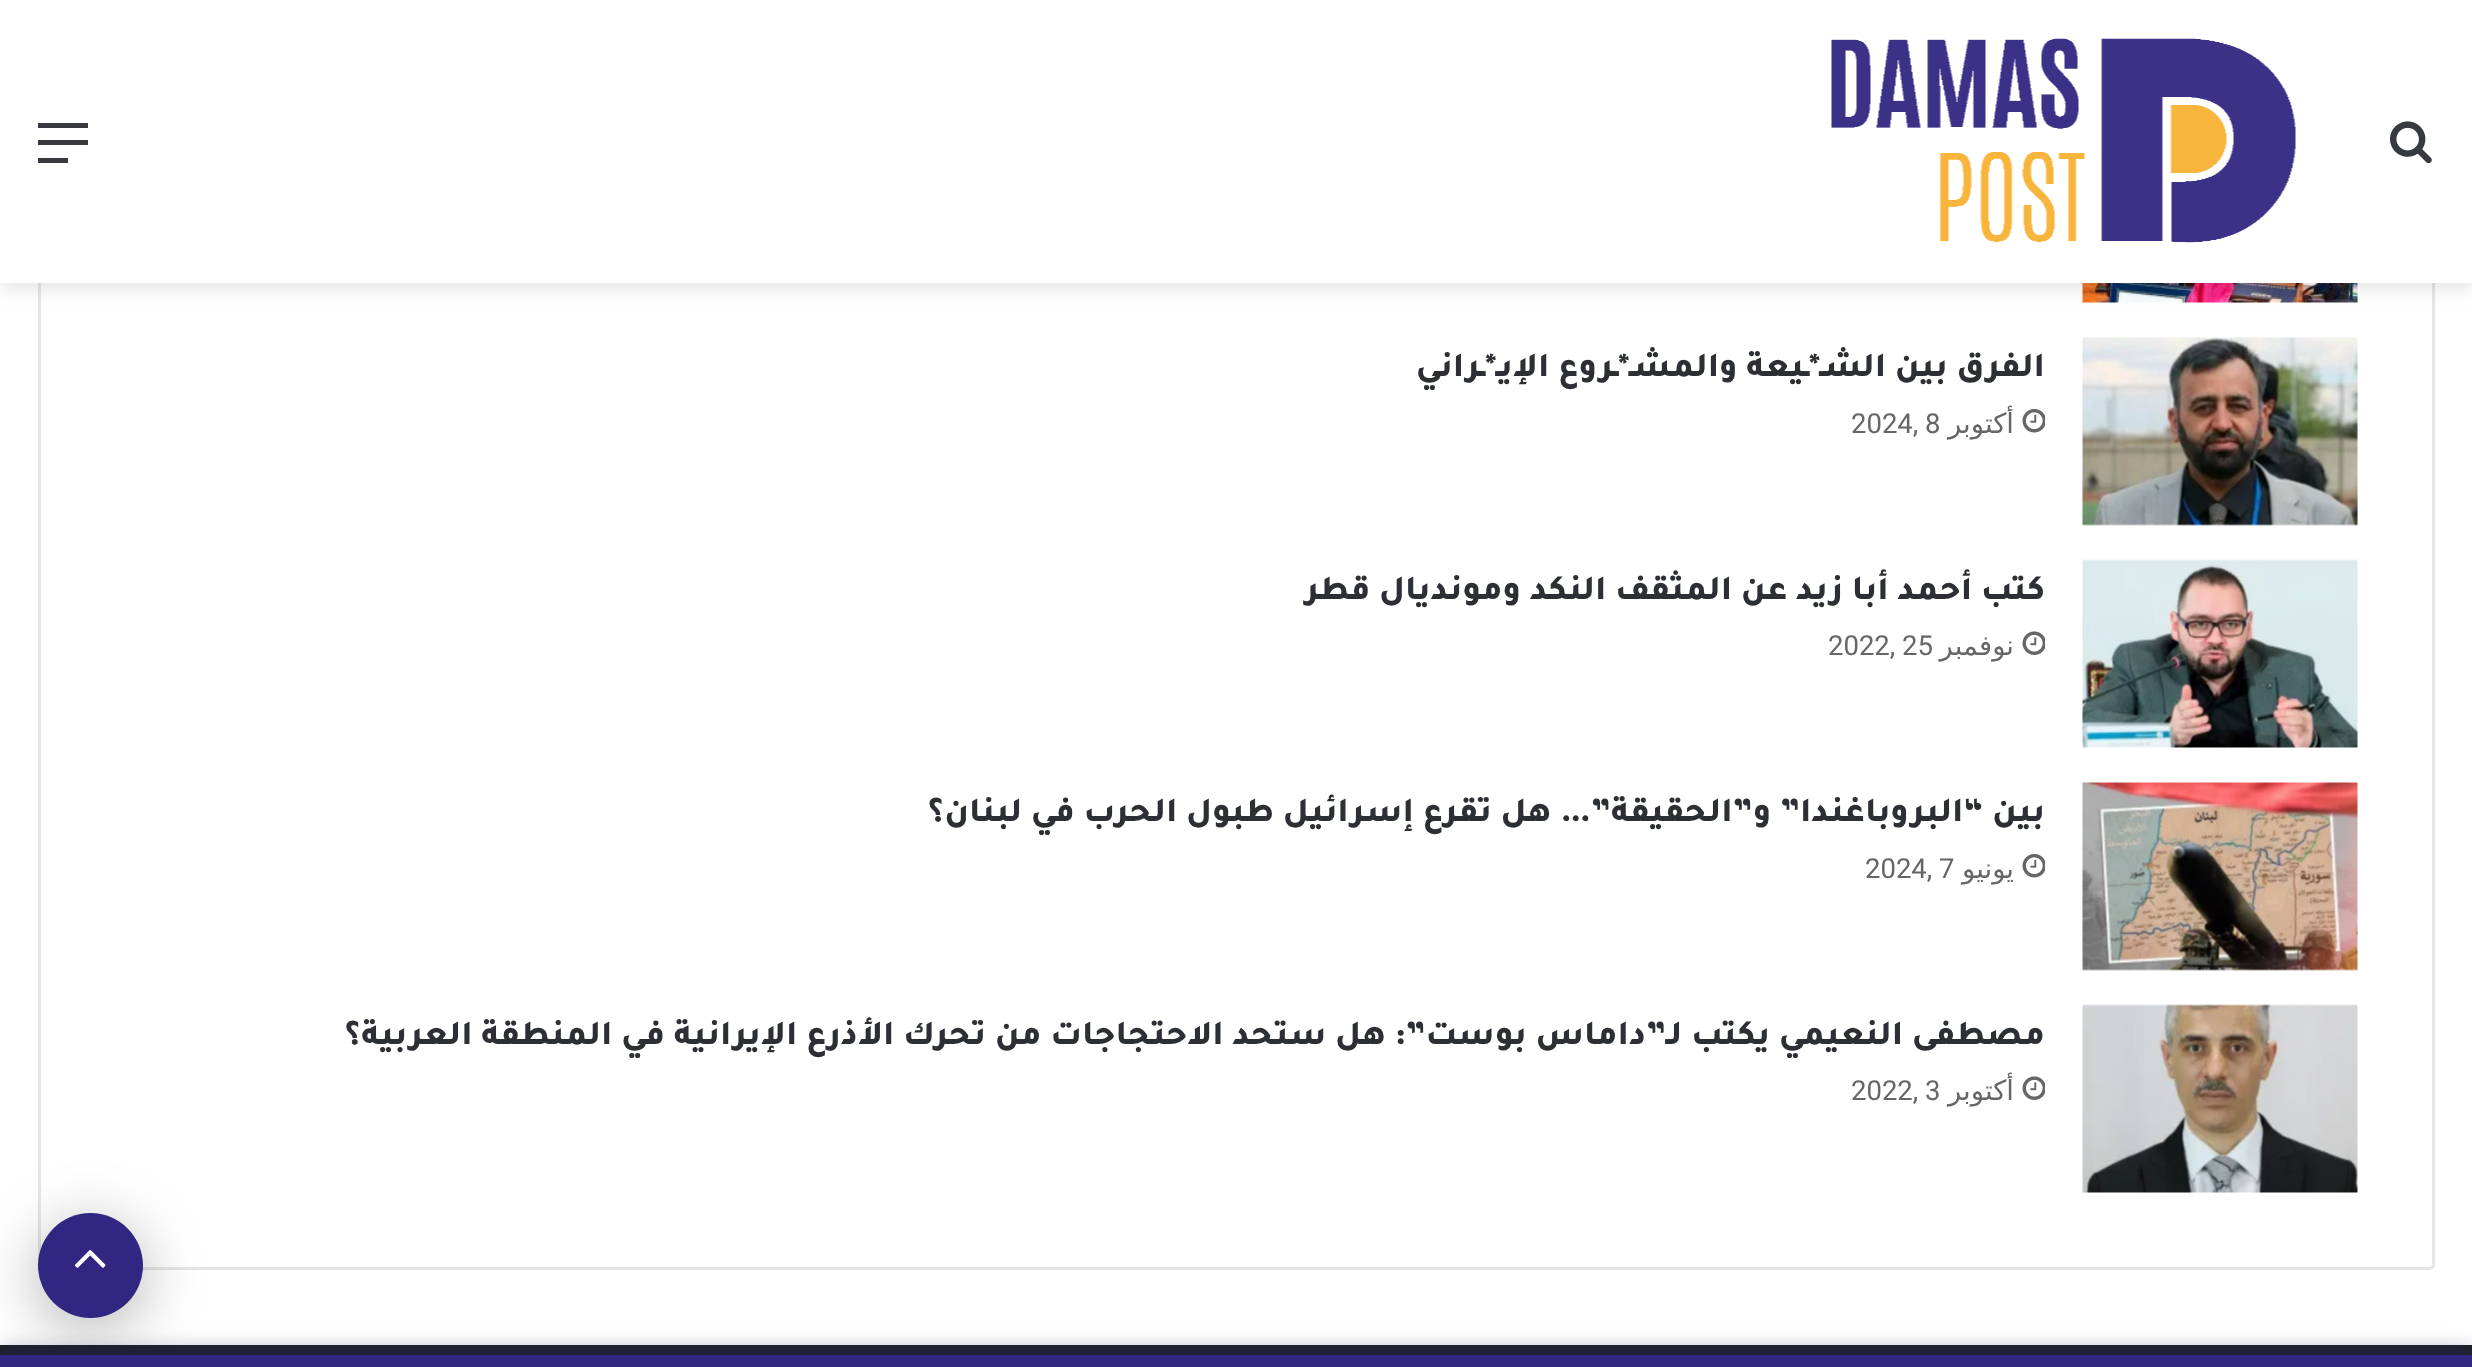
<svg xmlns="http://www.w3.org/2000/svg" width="2472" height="1367">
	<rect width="100%" height="100%" fill="#FFFFFF" />
	<rect x="39.5" y="-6.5" width="2394" height="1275" rx="3.5" fill="none" stroke="#E6E6E6" stroke-width="3" />
	<image x="2082" y="283" width="276" height="20" href="assets/img3.png" />
	<rect x="0" y="8" width="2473" height="282" fill="#000000" fill-opacity="0.1" filter="blur(9px)" />
	<rect x="0" y="0" width="2472" height="283" fill="#FFFFFF" />
	<image x="2390" y="121" width="42" height="43" href="assets/img1.png" />
	<image x="1831" y="38" width="465" height="205" href="assets/img2.png" />
	<rect x="38" y="140" width="50" height="5" fill="#37393E" />
	<rect x="38" y="123" width="50" height="5" fill="#37393E" />
	<rect x="38" y="158" width="30" height="5" fill="#37393E" />
	<image x="2082" y="337" width="276" height="189" href="assets/img4.png" />
	<text x="2045" y="376" font-family="Tajawal" font-size="35" font-weight="800" direction="rtl" fill="#2C2F34">الفرق بين الشـ*ـيعة والمشـ*ـروع الإيـ*ـراني</text>
	<image x="2022" y="408" width="23" height="25" href="assets/img5.png" />
	<text x="2014" y="433" font-family="DejaVu Sans" font-size="27.5" direction="rtl" fill="#666666">أكتوبر</text>
	<text x="1851" y="433" font-family="Roboto" font-size="27.5" fill="#666666">2024, 8</text>
	<image x="2082" y="559" width="276" height="189" href="assets/img6.png" />
	<text x="2045" y="599" font-family="Tajawal" font-size="35" font-weight="800" direction="rtl" fill="#2C2F34">كتب أحمد أبا زيد عن المثقف النكد ومونديال قطر</text>
	<image x="2022" y="631" width="23" height="24" href="assets/img7.png" />
	<text x="2014" y="655" font-family="DejaVu Sans" font-size="27.5" direction="rtl" fill="#666666">نوفمبر</text>
	<text x="1828" y="655" font-family="Roboto" font-size="27.5" fill="#666666">2022, 25</text>
	<image x="2082" y="782" width="276" height="189" href="assets/img8.png" />
	<text x="2045" y="821" font-family="Tajawal" font-size="35" font-weight="800" direction="rtl" fill="#2C2F34">بين “البروباغندا” و”الحقيقة”… هل تقرع إسرائيل طبول الحرب في لبنان؟</text>
	<image x="2022" y="853" width="23" height="25" href="assets/img5.png" />
	<text x="2014" y="878" font-family="DejaVu Sans" font-size="27.5" direction="rtl" fill="#666666">يونيو</text>
	<text x="1865" y="878" font-family="Roboto" font-size="27.5" fill="#666666">2024, 7</text>
	<image x="2082" y="1004" width="276" height="189" href="assets/img9.png" />
	<text x="2045" y="1044" font-family="Tajawal" font-size="35" font-weight="800" direction="rtl" fill="#2C2F34">مصطفى النعيمي يكتب لـ”داماس بوست”: هل ستحد الاحتجاجات من تحرك الأذرع الإيرانية في المنطقة العربية؟</text>
	<image x="2022" y="1076" width="23" height="24" href="assets/img7.png" />
	<text x="2014" y="1100" font-family="DejaVu Sans" font-size="27.5" direction="rtl" fill="#666666">أكتوبر</text>
	<text x="1851" y="1100" font-family="Roboto" font-size="27.5" fill="#666666">2022, 3</text>
	<rect x="0" y="1345" width="2472" height="10" fill="#1F2024" />
	<rect x="38" y="1225" width="105" height="105" rx="52.5" fill="#000000" fill-opacity="0.3" filter="blur(31px)" />
	<circle cx="90.5" cy="1265.5" r="52.5" fill="#312782" />
	<image x="74" y="1250" width="32" height="18" href="assets/img10.png" />
	<rect x="0" y="1355" width="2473" height="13" fill="#312782" fill-opacity="0.7" filter="blur(12.5px)" />
	<rect x="0" y="1355" width="2472" height="12" fill="#312782" />
</svg>
